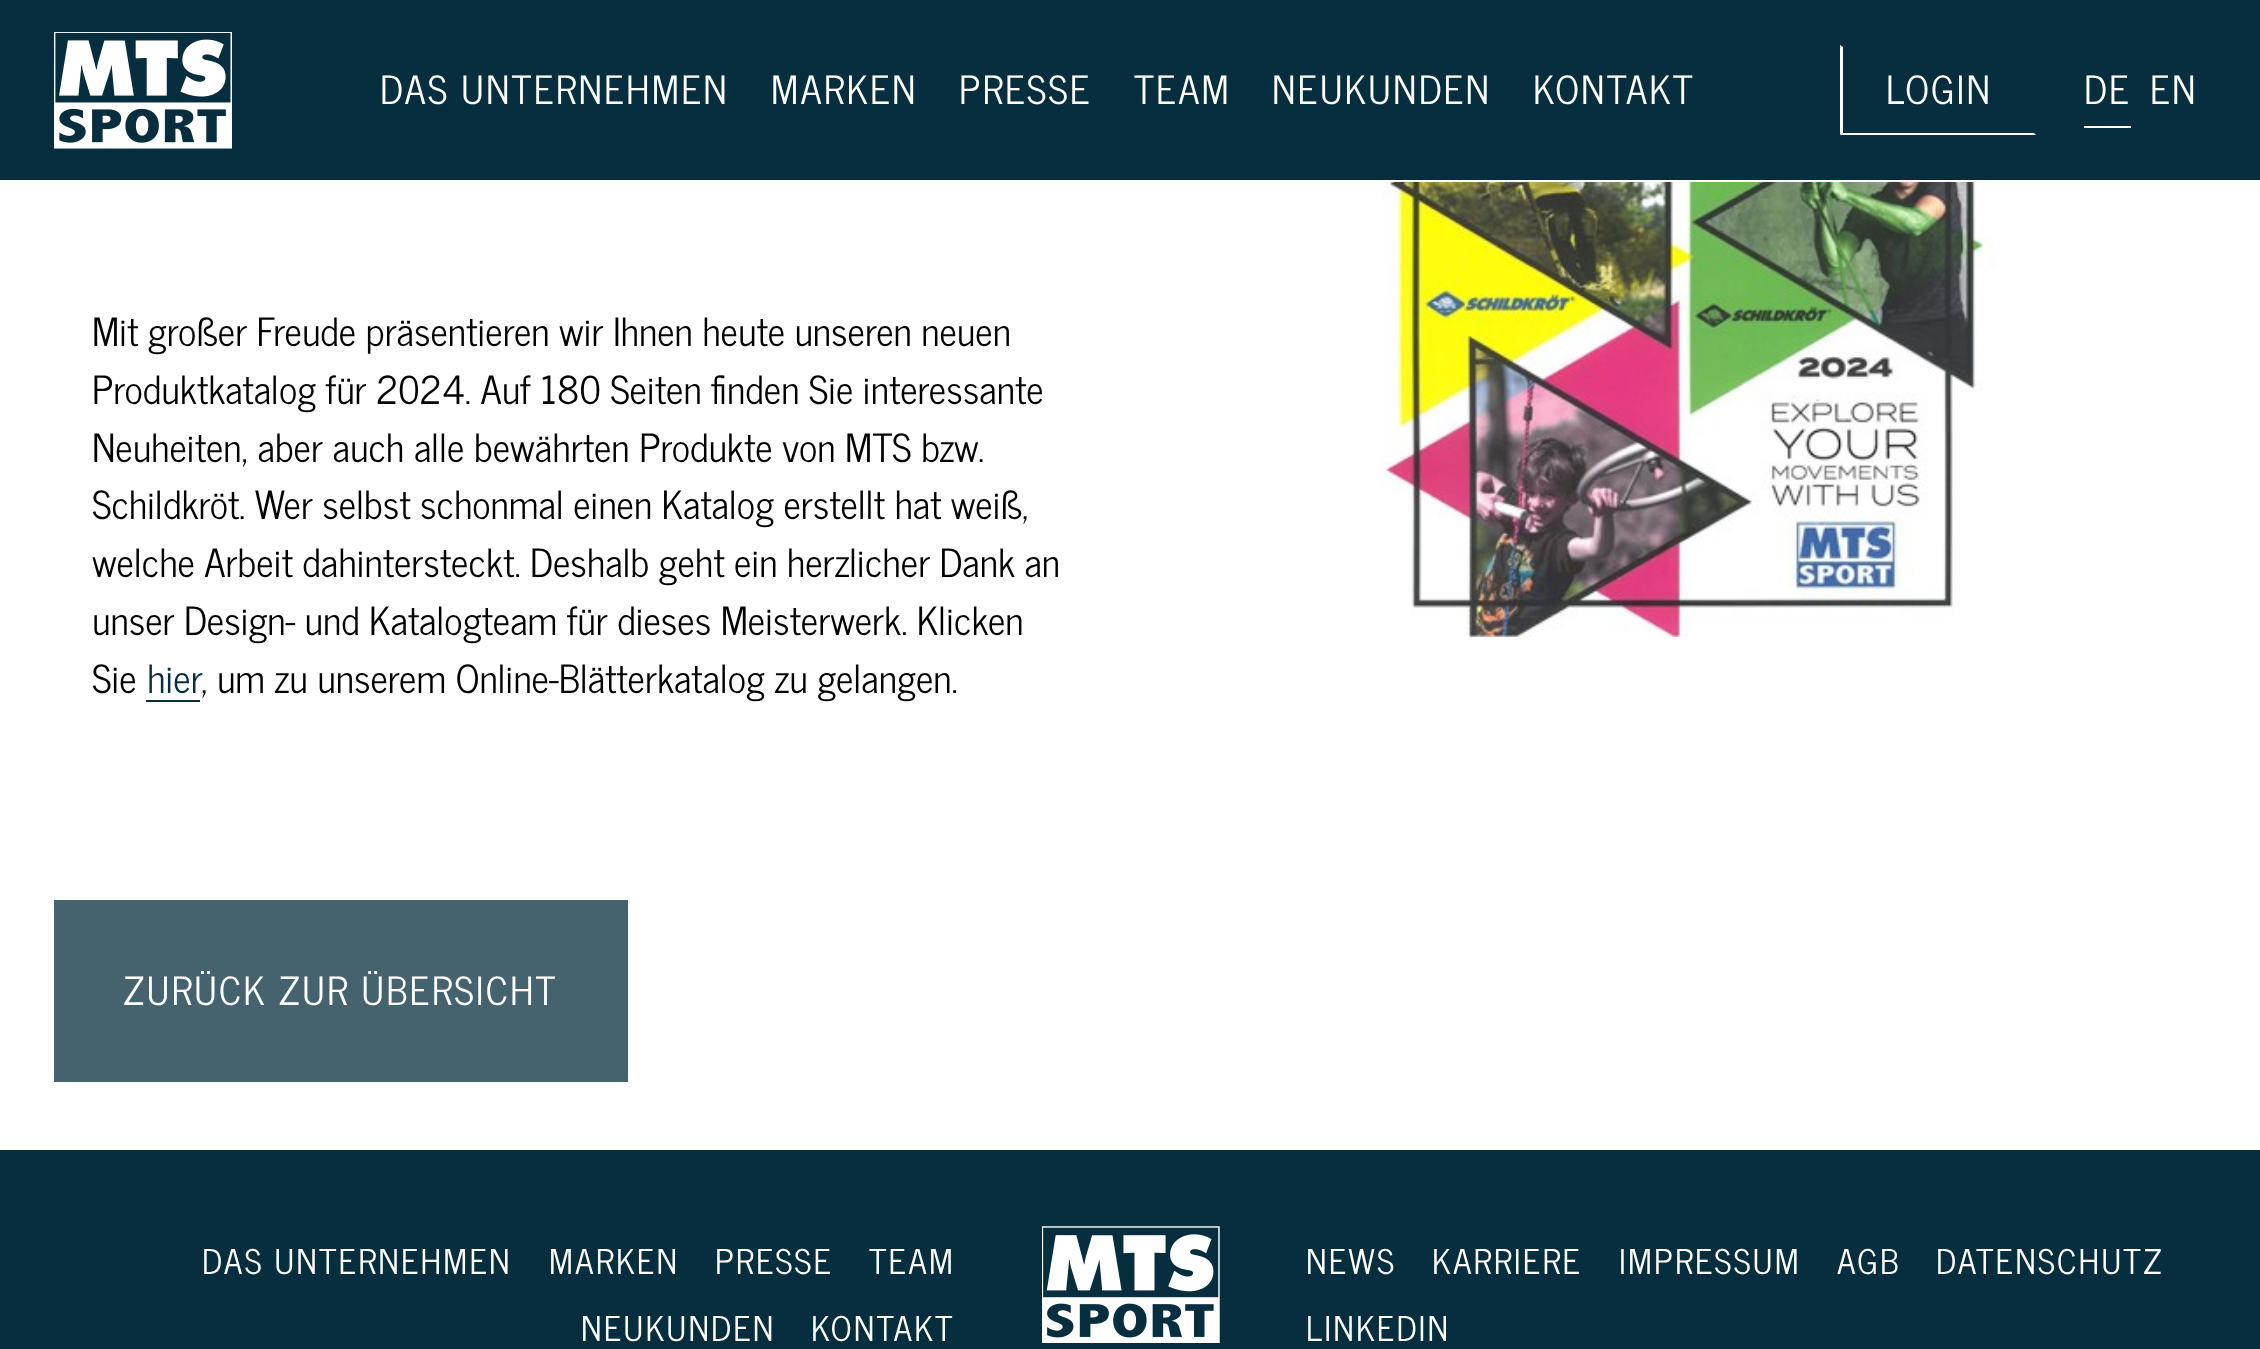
<svg xmlns="http://www.w3.org/2000/svg" width="2260" height="1349">
	<rect width="100%" height="100%" fill="#FFFFFF" />
	<rect x="0" y="0" width="2260" height="180" fill="#072E3F" />
	<image x="54" y="32" width="178" height="117" href="assets/img1.png" />
	<g font-family="News Cycle" font-size="38.5" letter-spacing="2.1" fill="#FFFFFF">
		<text x="380" y="104">DAS UNTERNEHMEN</text>
		<text x="771" y="104">MARKEN</text>
		<text x="959" y="104">PRESSE</text>
		<text x="1134" y="104">TEAM</text>
		<text x="1272" y="104">NEUKUNDEN</text>
		<text x="1533" y="104">KONTAKT</text>
	</g>
	<path d="M2036 135H1840L1843 133H2034Z" fill="#FFFFFF" />
	<path d="M1840 135V45L1843 47V133Z" fill="#FFFFFF" />
	<g font-family="News Cycle" font-size="38.5" letter-spacing="2.1" fill="#FFFFFF">
		<text x="1886" y="104">LOGIN</text>
		<text x="2084" y="104">DE</text>
	</g>
	<rect x="2084" y="126" width="47" height="2" fill="#FFFFFF" />
	<text x="2150" y="104" font-family="News Cycle" font-size="38.5" letter-spacing="2.1" fill="#FFFFFF">EN</text>
	<g font-family="News Cycle" font-size="38.5" fill="#000000">
		<text x="92" y="346" word-spacing="-0.25">Mit großer Freude präsentieren wir Ihnen heute unseren neuen</text>
		<text x="92" y="404" word-spacing="-0.25">Produktkatalog für 2024. Auf 180 Seiten finden Sie interessante</text>
		<text x="92" y="462">Neuheiten, aber auch alle bewährten Produkte von MTS bzw.</text>
		<text x="92" y="519" word-spacing="-0.25">Schildkröt. Wer selbst schonmal einen Katalog erstellt hat weiß,</text>
		<text x="92" y="577" word-spacing="-0.25">welche Arbeit dahintersteckt. Deshalb geht ein herzlicher Dank an</text>
		<text x="92" y="635" word-spacing="-0.25">unser Design- und Katalogteam für dieses Meisterwerk. Klicken</text>
		<text x="92" y="693">Sie</text>
	</g>
	<text x="147" y="693" font-family="News Cycle" font-size="38.5" fill="#072E3F">hier</text>
	<rect x="146" y="700" width="54" height="2" fill="#072E3F" />
	<text x="201" y="693" font-family="News Cycle" font-size="38.5" fill="#000000">, um zu unserem Online-Blätterkatalog zu gelangen.</text>
	<image x="1382" y="182" width="615" height="455" href="assets/img2.png" />
	<rect x="54" y="900" width="574" height="182" fill="#45626F" />
	<text x="123" y="1005" font-family="News Cycle" font-size="38.5" letter-spacing="2.1" fill="#FFFFFF">ZURÜCK ZUR ÜBERSICHT</text>
	<rect x="0" y="1150" width="2260" height="199" fill="#072E3F" />
	<g font-family="News Cycle" font-size="33.75" letter-spacing="2.1" fill="#FFFFFF">
		<text x="202" y="1274">DAS UNTERNEHMEN</text>
		<text x="549" y="1274">MARKEN</text>
		<text x="715" y="1274">PRESSE</text>
		<text x="869" y="1274">TEAM</text>
		<text x="581" y="1341">NEUKUNDEN</text>
		<text x="811" y="1341">KONTAKT</text>
	</g>
	<image x="1042" y="1226" width="178" height="117" href="assets/img3.png" />
	<g font-family="News Cycle" font-size="33.75" letter-spacing="2.1" fill="#FFFFFF">
		<text x="1306" y="1274">NEWS</text>
		<text x="1432" y="1274">KARRIERE</text>
		<text x="1619" y="1274">IMPRESSUM</text>
		<text x="1837" y="1274">AGB</text>
		<text x="1936" y="1274">DATENSCHUTZ</text>
		<text x="1306" y="1341">LINKEDIN</text>
	</g>
</svg>
